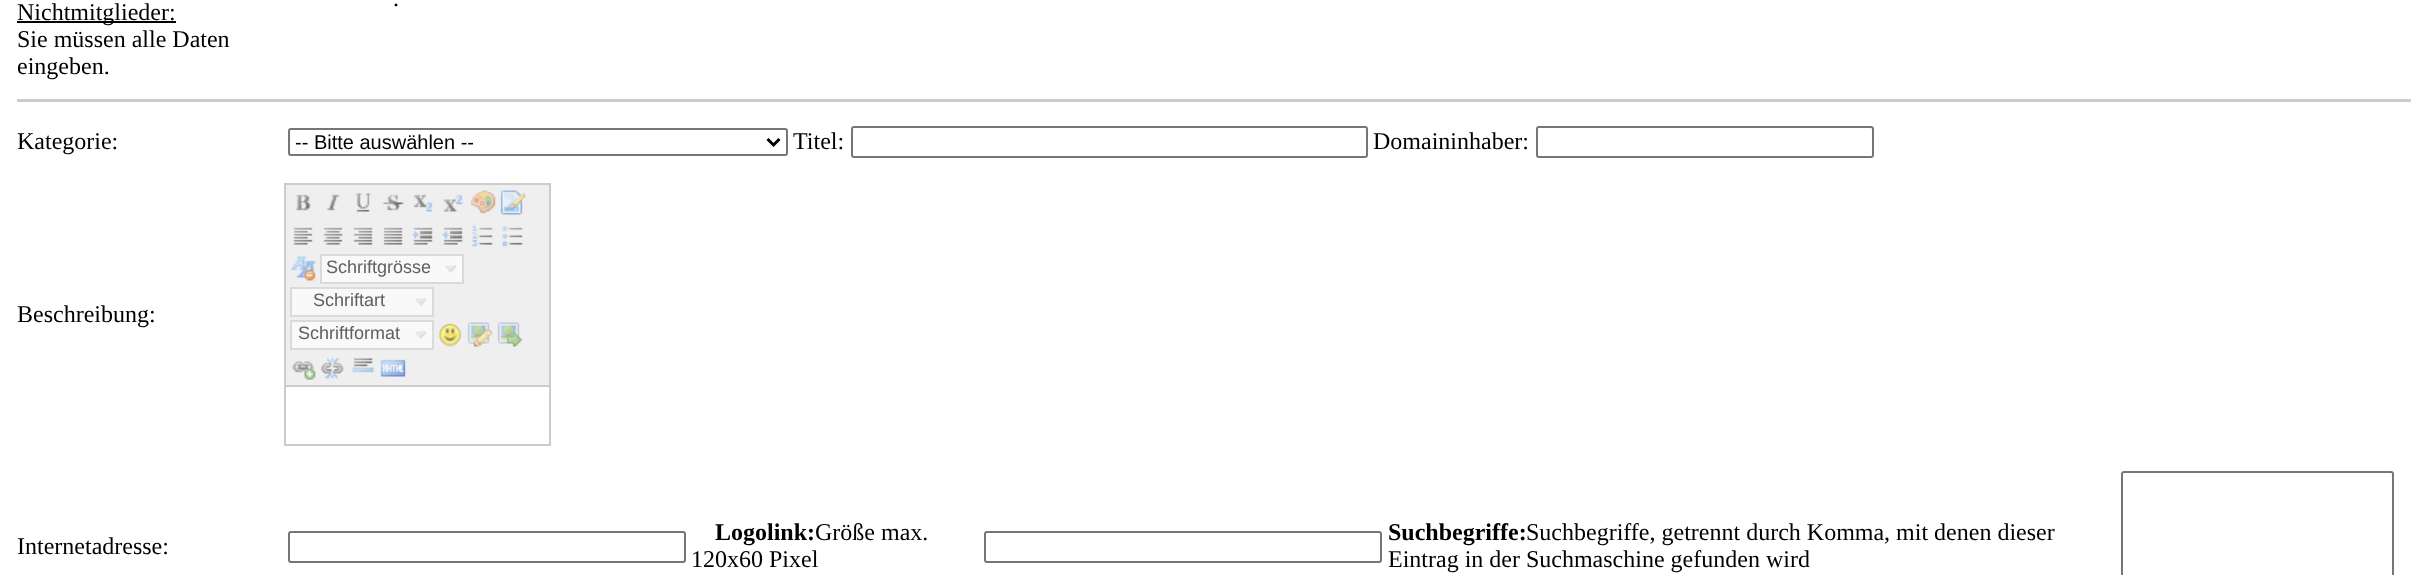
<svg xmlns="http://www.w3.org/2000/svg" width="2427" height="575">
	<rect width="100%" height="100%" fill="#FFFFFF" />
	<rect x="17" y="21" width="159" height="2" fill="#000000" />
	<g font-family="Liberation Serif" font-size="24" fill="#000000">
		<text x="17" y="20">Nichtmitglieder:</text>
		<text x="17" y="47">Sie müssen alle Daten</text>
		<text x="17" y="74">eingeben.</text>
		<text x="393" y="6">.</text>
	</g>
	<rect x="17" y="99" width="2394" height="3" fill="#CCCCCC" />
	<text x="17" y="149" font-family="Liberation Serif" font-size="24" fill="#000000">Kategorie:</text>
	<rect x="289" y="129" width="498" height="26" rx="2" fill="none" stroke="#767676" stroke-width="2" />
	<path d="M767.5 139L773.5 145L779.5 139" fill="none" stroke="#000000" stroke-width="3" />
	<text x="295" y="149" font-family="Liberation Sans" font-size="20" fill="#000000">-- Bitte auswählen --</text>
	<text x="793" y="149" font-family="Liberation Serif" font-size="24" fill="#000000">Titel:</text>
	<rect x="852" y="127" width="515" height="30" rx="2" fill="none" stroke="#767676" stroke-width="2" />
	<text x="1373" y="149" font-family="Liberation Serif" font-size="24" fill="#000000">Domaininhaber:</text>
	<rect x="1537" y="127" width="336" height="30" rx="2" fill="none" stroke="#767676" stroke-width="2" />
	<text x="17" y="322" font-family="Liberation Serif" font-size="24" fill="#000000">Beschreibung:</text>
	<rect x="285" y="184" width="265" height="202" fill="#EFEFEF" stroke="#CCCCCC" stroke-width="2" />
	<image x="295" y="194" width="16" height="17" href="assets/img1.png" />
	<image x="326" y="194" width="14" height="17" href="assets/img2.png" />
	<image x="355" y="193" width="16" height="19" href="assets/img3.png" />
	<image x="382" y="194" width="22" height="17" href="assets/img4.png" />
	<image x="413" y="194" width="21" height="18" href="assets/img5.png" />
	<image x="443" y="194" width="21" height="18" href="assets/img6.png" />
	<image x="470" y="190" width="26" height="24" href="assets/img7.png" />
	<image x="500" y="190" width="26" height="25" href="assets/img8.png" />
	<image x="293" y="227" width="20" height="18" href="assets/img9.png" />
	<image x="323" y="227" width="20" height="18" href="assets/img10.png" />
	<image x="353" y="227" width="20" height="18" href="assets/img11.png" />
	<image x="383" y="227" width="20" height="18" href="assets/img12.png" />
	<image x="412" y="227" width="21" height="18" href="assets/img13.png" />
	<image x="441" y="227" width="22" height="18" href="assets/img14.png" />
	<image x="472" y="225" width="21" height="22" href="assets/img15.png" />
	<image x="502" y="226" width="21" height="21" href="assets/img16.png" />
	<image x="290" y="256" width="26" height="25" href="assets/img17.png" />
	<rect x="321" y="255" width="142" height="28" fill="#F9F9F9" stroke="#DADADA" stroke-width="2" />
	<text x="326" y="273" font-family="Liberation Sans" font-size="18" fill="#606060">Schriftgrösse</text>
	<image x="445" y="265" width="12" height="8" href="assets/img18.png" />
	<rect x="291" y="288" width="142" height="28" fill="#F9F9F9" stroke="#DADADA" stroke-width="2" />
	<text x="313" y="306" font-family="Liberation Sans" font-size="18" fill="#606060">Schriftart</text>
	<image x="415" y="298" width="12" height="8" href="assets/img18.png" />
	<rect x="291" y="321" width="142" height="28" fill="#F9F9F9" stroke="#DADADA" stroke-width="2" />
	<text x="298" y="339" font-family="Liberation Sans" font-size="18" fill="#606060">Schriftformat</text>
	<image x="415" y="331" width="12" height="8" href="assets/img18.png" />
	<image x="438" y="322" width="24" height="25" href="assets/img19.png" />
	<image x="467" y="322" width="26" height="25" href="assets/img20.png" />
	<image x="497" y="322" width="26" height="25" href="assets/img21.png" />
	<image x="292" y="361" width="24" height="19" href="assets/img22.png" />
	<image x="320" y="358" width="24" height="21" href="assets/img23.png" />
	<image x="352" y="358" width="22" height="15" href="assets/img24.png" />
	<image x="380" y="359" width="26" height="18" href="assets/img25.png" />
	<rect x="549" y="387" width="2" height="59" fill="#CCCCCC" />
	<rect x="284" y="444" width="267" height="2" fill="#CCCCCC" />
	<rect x="284" y="387" width="2" height="59" fill="#CCCCCC" />
	<text x="17" y="554" font-family="Liberation Serif" font-size="24" fill="#000000">Internetadresse:</text>
	<rect x="289" y="532" width="396" height="30" rx="2" fill="none" stroke="#767676" stroke-width="2" />
	<text x="715" y="540" font-family="Liberation Serif" font-size="24" font-weight="700" fill="#000000">Logolink:</text>
	<g font-family="Liberation Serif" font-size="24" fill="#000000">
		<text x="815" y="540">Größe max.</text>
		<text x="691" y="567">120x60 Pixel</text>
	</g>
	<rect x="985" y="532" width="396" height="30" rx="2" fill="none" stroke="#767676" stroke-width="2" />
	<text x="1388" y="540" font-family="Liberation Serif" font-size="24" font-weight="700" fill="#000000">Suchbegriffe:</text>
	<g font-family="Liberation Serif" font-size="24" fill="#000000">
		<text x="1526" y="540">Suchbegriffe, getrennt durch Komma, mit denen dieser</text>
		<text x="1388" y="567">Eintrag in der Suchmaschine gefunden wird</text>
	</g>
	<rect x="2122" y="472" width="271" height="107" rx="2" fill="none" stroke="#767676" stroke-width="2" />
</svg>
